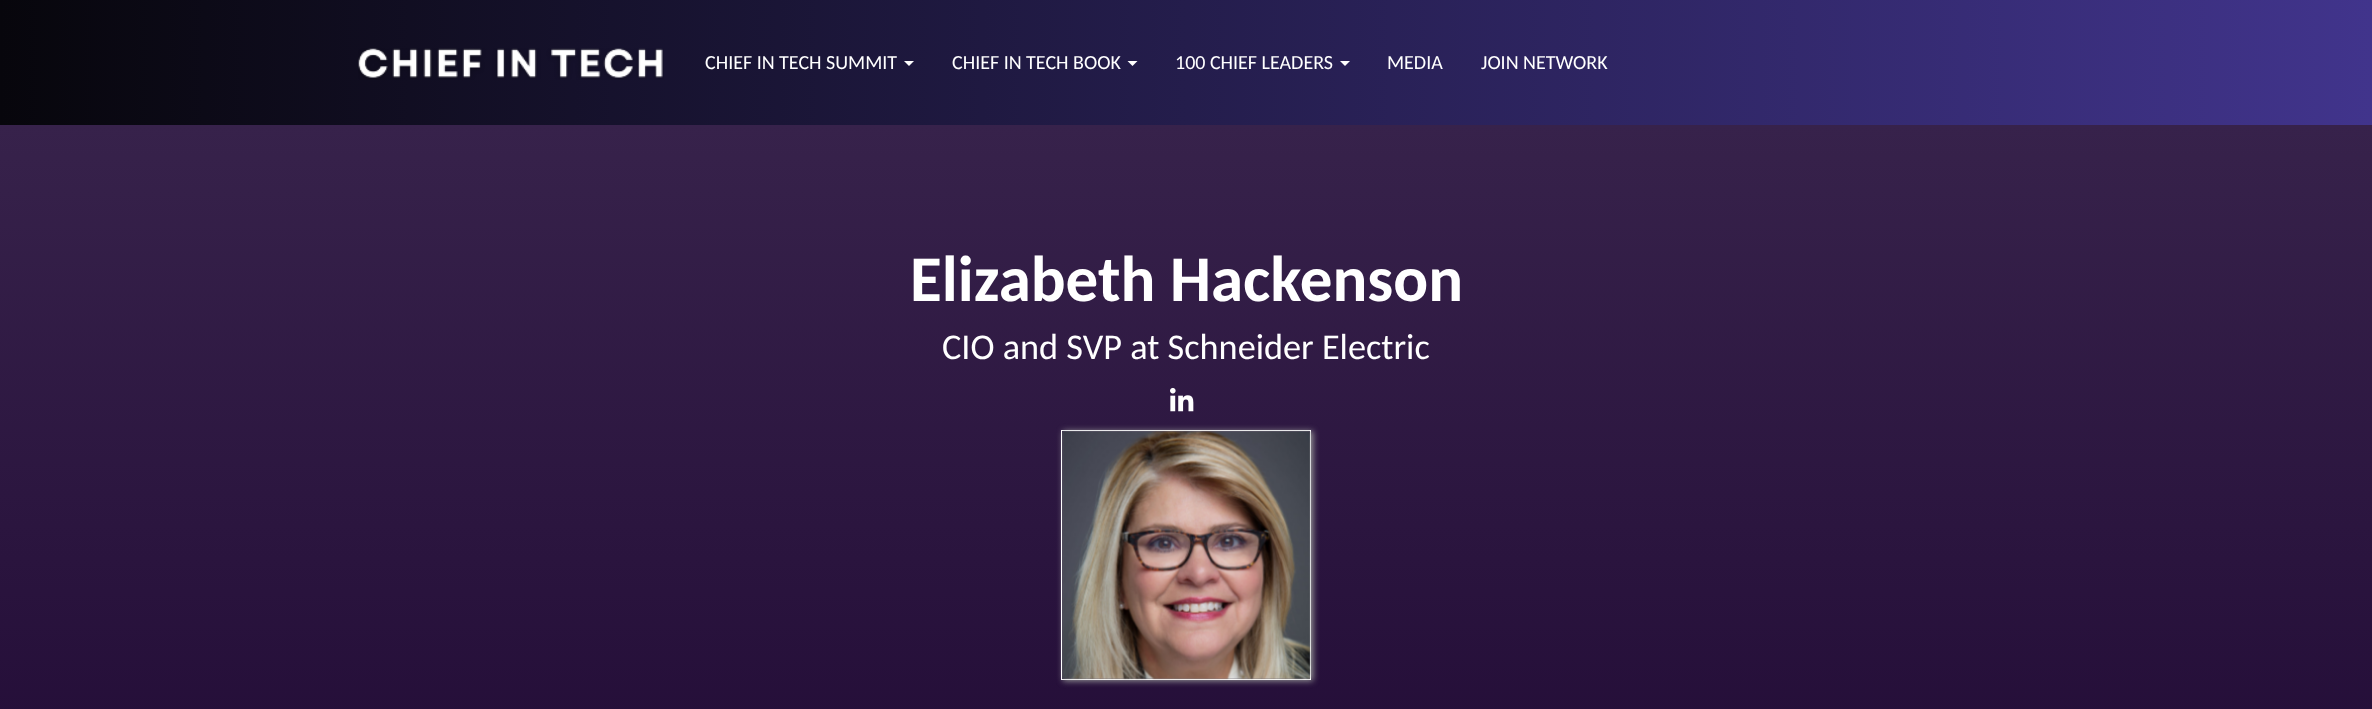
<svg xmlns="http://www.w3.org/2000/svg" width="2372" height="709">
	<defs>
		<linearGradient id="g1" gradientUnits="userSpaceOnUse" x1="0" y1="63" x2="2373" y2="62"><stop offset="0" stop-color="#07060C" /><stop offset="1" stop-color="#41348C" /></linearGradient>
		<linearGradient id="g2" gradientUnits="userSpaceOnUse" x1="1186" y1="125" x2="1186" y2="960"><stop offset="0" stop-color="#37224B" /><stop offset="1" stop-color="#1E0732" /></linearGradient>
	</defs>
	<rect width="100%" height="100%" fill="#FFFFFF" />
	<rect x="0" y="0" width="2372" height="125" fill="url(#g1)" />
	<image x="358" y="48" width="306" height="32" href="assets/img1.png" />
	<text x="705" y="69" font-family="Carlito" font-size="20" fill="#FFFFFF">CHIEF IN TECH SUMMIT</text>
	<path d="M904 61H914L909 66Z" fill="#FFFFFF" />
	<text x="952" y="69" font-family="Carlito" font-size="20" fill="#FFFFFF">CHIEF IN TECH BOOK</text>
	<path d="M1127.5 61H1137.5L1132.5 66Z" fill="#FFFFFF" />
	<text x="1175" y="69" font-family="Carlito" font-size="20" fill="#FFFFFF">100 CHIEF LEADERS</text>
	<path d="M1340 61H1350L1345 66Z" fill="#FFFFFF" />
	<g font-family="Carlito" font-size="20" fill="#FFFFFF">
		<text x="1387" y="69">MEDIA</text>
		<text x="1481" y="69">JOIN NETWORK</text>
	</g>
	<rect x="0" y="125" width="2372" height="584" fill="url(#g2)" />
	<text x="910" y="301" font-family="Carlito" font-size="65" font-weight="700" fill="#FFFFFF">Elizabeth Hackenson</text>
	<text x="942" y="359" font-family="Carlito" font-size="36.25" fill="#FFFFFF">CIO and SVP at Schneider Electric</text>
	<image x="1170" y="387" width="24" height="25" href="assets/img2.png" />
	<rect x="1063" y="431" width="250" height="250" fill="#999999" filter="blur(3px)" />
	<rect x="1061.5" y="430.5" width="249" height="249" fill="none" stroke="#FFFFFF" />
	<image x="1062" y="430" width="249" height="250" href="assets/img3.png" />
</svg>
